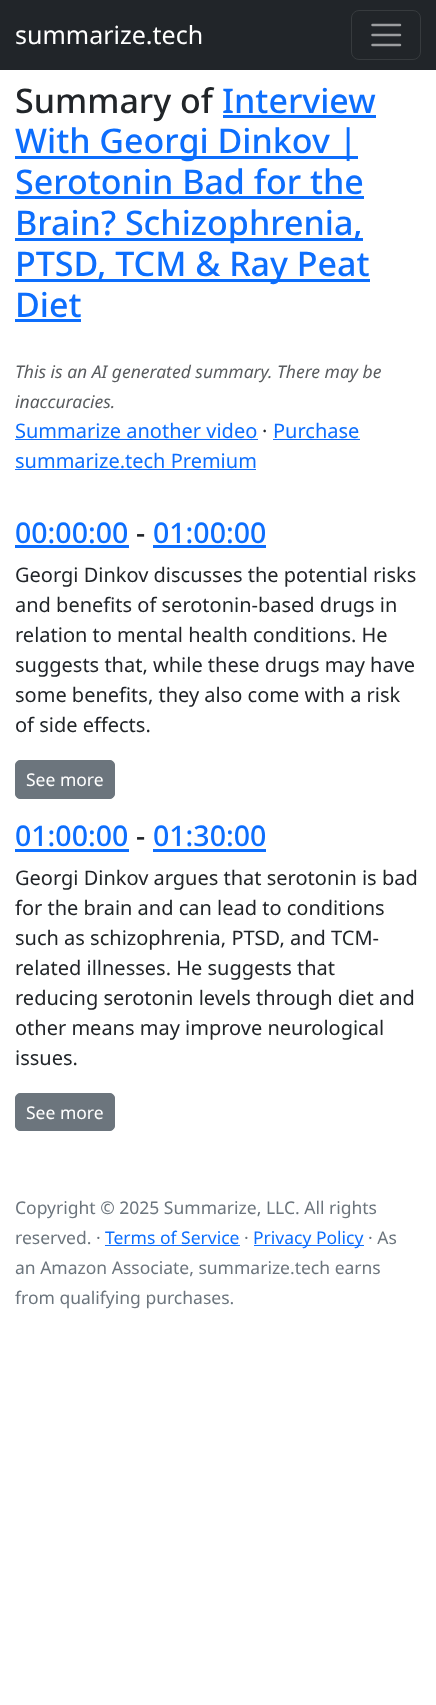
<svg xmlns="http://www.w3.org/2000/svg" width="436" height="1705">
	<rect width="100%" height="100%" fill="#FFFFFF" />
	<rect x="0" y="0" width="436" height="70" fill="#212529" />
	<text x="15" y="44" font-family="Noto Sans" font-size="25" fill="#FFFFFF">summarize.tech</text>
	<rect x="351.5" y="10.5" width="69" height="49" rx="7.5" fill="none" stroke="#373B3E" />
	<path d="M372.5 25H400M372.5 35H400M372.5 45H400" fill="none" stroke="#9B9D9F" stroke-width="2.5" stroke-linecap="round" />
	<text x="15" y="113" font-family="Noto Sans" font-size="34" font-weight="500" fill="#212529">Summary of</text>
	<text x="222" y="113" font-family="Noto Sans" font-size="34" font-weight="500" fill="#0D6EFD">Interview</text>
	<rect x="223" y="115" width="153" height="3" fill="#0D6EFD" />
	<rect x="15" y="156" width="343" height="3" fill="#0D6EFD" />
	<g font-family="Noto Sans" font-size="34" font-weight="500" fill="#0D6EFD">
		<text x="15" y="153">With Georgi Dinkov |</text>
		<text x="15" y="194">Serotonin Bad for the</text>
	</g>
	<rect x="15" y="196" width="349" height="3" fill="#0D6EFD" />
	<rect x="15" y="238" width="348" height="3" fill="#0D6EFD" />
	<text x="15" y="235" font-family="Noto Sans" font-size="34" font-weight="500" fill="#0D6EFD">Brain? Schizophrenia,</text>
	<rect x="15" y="279" width="355" height="3" fill="#0D6EFD" />
	<g font-family="Noto Sans" font-size="34" font-weight="500" fill="#0D6EFD">
		<text x="15" y="276">PTSD, TCM &amp; Ray Peat</text>
		<text x="15" y="317">Diet</text>
	</g>
	<rect x="15" y="319" width="66" height="3" fill="#0D6EFD" />
	<g font-family="Noto Sans" font-size="17.5" font-style="italic" fill="#595C5F">
		<text x="15" y="378">This is an AI generated summary. There may be</text>
		<text x="15" y="408">inaccuracies.</text>
	</g>
	<text x="15" y="438" font-family="Noto Sans" font-size="20" fill="#0D6EFD">Summarize another video</text>
	<rect x="15" y="439" width="243" height="1" fill="#0D6EFD" />
	<text x="262" y="438" font-family="Noto Sans" font-size="20" fill="#212529">·</text>
	<text x="273" y="438" font-family="Noto Sans" font-size="20" fill="#0D6EFD">Purchase</text>
	<rect x="273" y="439" width="87" height="1" fill="#0D6EFD" />
	<text x="15" y="468" font-family="Noto Sans" font-size="20" fill="#0D6EFD">summarize.tech Premium</text>
	<rect x="15" y="469" width="241" height="1" fill="#0D6EFD" />
	<text x="15" y="543" font-family="Noto Sans" font-size="28.5" font-weight="500" fill="#0D6EFD">00:00:00</text>
	<rect x="15" y="545" width="114" height="3" fill="#0D6EFD" />
	<text x="136" y="543" font-family="Noto Sans" font-size="28.5" font-weight="500" fill="#212529">-</text>
	<text x="153" y="543" font-family="Noto Sans" font-size="28.5" font-weight="500" fill="#0D6EFD">01:00:00</text>
	<rect x="153" y="545" width="113" height="3" fill="#0D6EFD" />
	<g font-family="Noto Sans" font-size="20" fill="#212529">
		<text x="15" y="582">Georgi Dinkov discusses the potential risks</text>
		<text x="15" y="612">and benefits of serotonin-based drugs in</text>
		<text x="15" y="642">relation to mental health conditions. He</text>
		<text x="15" y="672">suggests that, while these drugs may have</text>
		<text x="15" y="702">some benefits, they also come with a risk</text>
		<text x="15" y="732">of side effects.</text>
	</g>
	<rect x="15.5" y="760.5" width="99" height="38" rx="4.5" fill="#6C757D" stroke="#6C757D" />
	<text x="26" y="786" font-family="Noto Sans" font-size="17.5" fill="#FFFFFF">See more</text>
	<text x="15" y="846" font-family="Noto Sans" font-size="28.5" font-weight="500" fill="#0D6EFD">01:00:00</text>
	<rect x="15" y="849" width="114" height="3" fill="#0D6EFD" />
	<text x="136" y="846" font-family="Noto Sans" font-size="28.5" font-weight="500" fill="#212529">-</text>
	<text x="153" y="846" font-family="Noto Sans" font-size="28.5" font-weight="500" fill="#0D6EFD">01:30:00</text>
	<rect x="153" y="849" width="113" height="3" fill="#0D6EFD" />
	<g font-family="Noto Sans" font-size="20" fill="#212529">
		<text x="15" y="885">Georgi Dinkov argues that serotonin is bad</text>
		<text x="15" y="915">for the brain and can lead to conditions</text>
		<text x="15" y="945">such as schizophrenia, PTSD, and TCM-</text>
		<text x="15" y="975">related illnesses. He suggests that</text>
		<text x="15" y="1005">reducing serotonin levels through diet and</text>
		<text x="15" y="1035">other means may improve neurological</text>
		<text x="15" y="1065">issues.</text>
	</g>
	<rect x="15.5" y="1093.5" width="99" height="37" rx="4.5" fill="#6C757D" stroke="#6C757D" />
	<text x="26" y="1119" font-family="Noto Sans" font-size="17.5" fill="#FFFFFF">See more</text>
	<g font-family="Noto Sans" font-size="17.5" fill="#6C757D">
		<text x="15" y="1214">Copyright © 2025 Summarize, LLC. All rights</text>
		<text x="15" y="1244">reserved. ·</text>
	</g>
	<text x="105" y="1244" font-family="Noto Sans" font-size="17.5" fill="#0D6EFD">Terms of Service</text>
	<rect x="105" y="1245" width="135" height="1" fill="#0D6EFD" />
	<text x="244" y="1244" font-family="Noto Sans" font-size="17.5" fill="#6C757D">·</text>
	<rect x="254" y="1245" width="110" height="1" fill="#0D6EFD" />
	<text x="253" y="1244" font-family="Noto Sans" font-size="17.5" fill="#0D6EFD">Privacy Policy</text>
	<g font-family="Noto Sans" font-size="17.5" fill="#6C757D">
		<text x="368" y="1244">· As</text>
		<text x="15" y="1274">an Amazon Associate, summarize.tech earns</text>
		<text x="15" y="1304">from qualifying purchases.</text>
	</g>
</svg>
